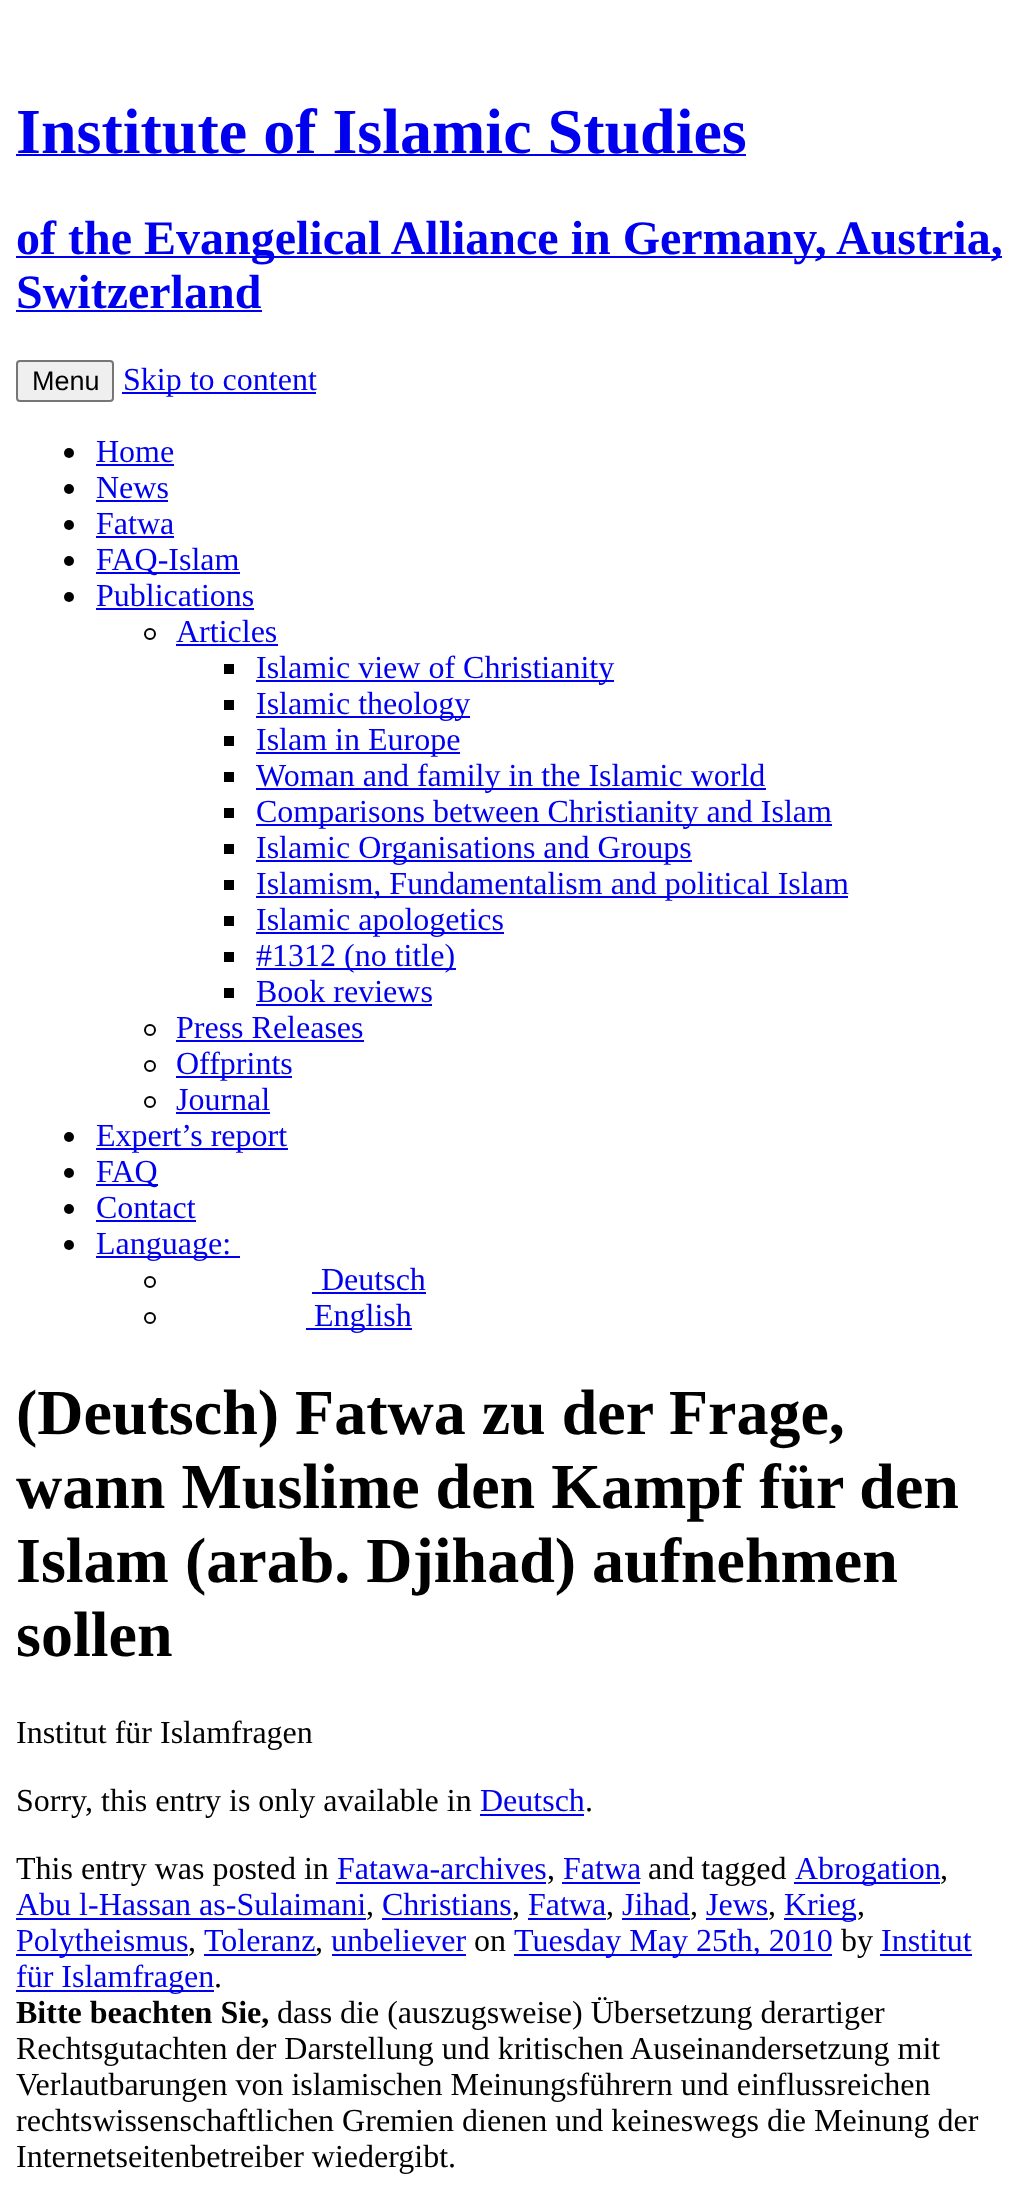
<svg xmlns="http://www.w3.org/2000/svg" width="1022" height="2198">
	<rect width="100%" height="100%" fill="#FFFFFF" />
	<text x="16" y="153" font-family="Liberation Serif" font-size="64" font-weight="700" fill="#0000EE">Institute of Islamic Studies</text>
	<rect x="16" y="154" width="730" height="2" fill="#0000EE" />
	<rect x="16" y="256" width="986" height="2" fill="#0000EE" />
	<g font-family="Liberation Serif" font-size="48" font-weight="700" fill="#0000EE">
		<text x="16" y="254">of the Evangelical Alliance in Germany, Austria,</text>
		<text x="16" y="308">Switzerland</text>
	</g>
	<rect x="16" y="310" width="246" height="2" fill="#0000EE" />
	<rect x="17" y="361" width="96" height="40" rx="3" fill="#EFEFEF" stroke="#767676" stroke-width="2" />
	<text x="32" y="390" font-family="Liberation Sans" font-size="27" fill="#000000">Menu</text>
	<rect x="122" y="392" width="194" height="2" fill="#0000EE" />
	<text x="123" y="390" font-family="Liberation Serif" font-size="32" fill="#0000EE">Skip to content</text>
	<circle cx="69" cy="453" r="5" fill="#000000" />
	<text x="96" y="462" font-family="Liberation Serif" font-size="32" fill="#0000EE">Home</text>
	<rect x="96" y="464" width="78" height="2" fill="#0000EE" />
	<circle cx="69" cy="489" r="5" fill="#000000" />
	<text x="96" y="498" font-family="Liberation Serif" font-size="32" fill="#0000EE">News</text>
	<rect x="96" y="500" width="72" height="2" fill="#0000EE" />
	<circle cx="69" cy="525" r="5" fill="#000000" />
	<text x="96" y="534" font-family="Liberation Serif" font-size="32" fill="#0000EE">Fatwa</text>
	<rect x="96" y="536" width="78" height="2" fill="#0000EE" />
	<circle cx="69" cy="561" r="5" fill="#000000" />
	<rect x="96" y="572" width="144" height="2" fill="#0000EE" />
	<text x="96" y="570" font-family="Liberation Serif" font-size="32" fill="#0000EE">FAQ-Islam</text>
	<circle cx="69" cy="597" r="5" fill="#000000" />
	<text x="96" y="606" font-family="Liberation Serif" font-size="32" fill="#0000EE">Publications</text>
	<rect x="96" y="608" width="158" height="2" fill="#0000EE" />
	<circle cx="150" cy="634" r="5" fill="none" stroke="#000000" stroke-width="2" />
	<text x="176" y="642" font-family="Liberation Serif" font-size="32" fill="#0000EE">Articles</text>
	<rect x="176" y="644" width="102" height="2" fill="#0000EE" />
	<rect x="224" y="664" width="10" height="10" fill="#000000" />
	<rect x="256" y="680" width="358" height="2" fill="#0000EE" />
	<text x="256" y="678" font-family="Liberation Serif" font-size="32" fill="#0000EE">Islamic view of Christianity</text>
	<rect x="224" y="700" width="10" height="10" fill="#000000" />
	<rect x="256" y="716" width="214" height="2" fill="#0000EE" />
	<text x="256" y="714" font-family="Liberation Serif" font-size="32" fill="#0000EE">Islamic theology</text>
	<rect x="224" y="736" width="10" height="10" fill="#000000" />
	<rect x="256" y="752" width="204" height="2" fill="#0000EE" />
	<text x="256" y="750" font-family="Liberation Serif" font-size="32" fill="#0000EE">Islam in Europe</text>
	<rect x="224" y="772" width="10" height="10" fill="#000000" />
	<rect x="256" y="788" width="510" height="2" fill="#0000EE" />
	<text x="256" y="786" font-family="Liberation Serif" font-size="32" fill="#0000EE">Woman and family in the Islamic world</text>
	<rect x="224" y="808" width="10" height="10" fill="#000000" />
	<rect x="256" y="824" width="576" height="2" fill="#0000EE" />
	<text x="256" y="822" font-family="Liberation Serif" font-size="32" fill="#0000EE">Comparisons between Christianity and Islam</text>
	<rect x="224" y="844" width="10" height="10" fill="#000000" />
	<rect x="256" y="860" width="436" height="2" fill="#0000EE" />
	<text x="256" y="858" font-family="Liberation Serif" font-size="32" fill="#0000EE">Islamic Organisations and Groups</text>
	<rect x="224" y="880" width="10" height="10" fill="#000000" />
	<rect x="256" y="896" width="592" height="2" fill="#0000EE" />
	<text x="256" y="894" font-family="Liberation Serif" font-size="32" fill="#0000EE">Islamism, Fundamentalism and political Islam</text>
	<rect x="224" y="916" width="10" height="10" fill="#000000" />
	<rect x="256" y="932" width="248" height="2" fill="#0000EE" />
	<text x="256" y="930" font-family="Liberation Serif" font-size="32" fill="#0000EE">Islamic apologetics</text>
	<rect x="224" y="952" width="10" height="10" fill="#000000" />
	<rect x="256" y="968" width="200" height="2" fill="#0000EE" />
	<text x="256" y="966" font-family="Liberation Serif" font-size="32" fill="#0000EE">#1312 (no title)</text>
	<rect x="224" y="988" width="10" height="10" fill="#000000" />
	<text x="256" y="1002" font-family="Liberation Serif" font-size="32" fill="#0000EE">Book reviews</text>
	<rect x="256" y="1004" width="176" height="2" fill="#0000EE" />
	<circle cx="150" cy="1030" r="5" fill="none" stroke="#000000" stroke-width="2" />
	<text x="176" y="1038" font-family="Liberation Serif" font-size="32" fill="#0000EE">Press Releases</text>
	<rect x="176" y="1040" width="188" height="2" fill="#0000EE" />
	<circle cx="150" cy="1066" r="5" fill="none" stroke="#000000" stroke-width="2" />
	<rect x="176" y="1076" width="116" height="2" fill="#0000EE" />
	<text x="176" y="1074" font-family="Liberation Serif" font-size="32" fill="#0000EE">Offprints</text>
	<circle cx="150" cy="1102" r="5" fill="none" stroke="#000000" stroke-width="2" />
	<text x="176" y="1110" font-family="Liberation Serif" font-size="32" fill="#0000EE">Journal</text>
	<rect x="176" y="1112" width="94" height="2" fill="#0000EE" />
	<circle cx="69" cy="1137" r="5" fill="#000000" />
	<rect x="96" y="1148" width="192" height="2" fill="#0000EE" />
	<text x="96" y="1146" font-family="Liberation Serif" font-size="32" fill="#0000EE">Expert’s report</text>
	<circle cx="69" cy="1173" r="5" fill="#000000" />
	<rect x="96" y="1184" width="62" height="2" fill="#0000EE" />
	<text x="96" y="1182" font-family="Liberation Serif" font-size="32" fill="#0000EE">FAQ</text>
	<circle cx="69" cy="1209" r="5" fill="#000000" />
	<text x="96" y="1218" font-family="Liberation Serif" font-size="32" fill="#0000EE">Contact</text>
	<rect x="96" y="1220" width="100" height="2" fill="#0000EE" />
	<circle cx="69" cy="1245" r="5" fill="#000000" />
	<rect x="96" y="1256" width="144" height="2" fill="#0000EE" />
	<text x="96" y="1254" font-family="Liberation Serif" font-size="32" fill="#0000EE">Language:</text>
	<circle cx="150" cy="1282" r="5" fill="none" stroke="#000000" stroke-width="2" />
	<text x="321" y="1290" font-family="Liberation Serif" font-size="32" fill="#0000EE">Deutsch</text>
	<rect x="312" y="1292" width="114" height="2" fill="#0000EE" />
	<circle cx="150" cy="1318" r="5" fill="none" stroke="#000000" stroke-width="2" />
	<rect x="306" y="1328" width="106" height="2" fill="#0000EE" />
	<text x="314" y="1326" font-family="Liberation Serif" font-size="32" fill="#0000EE">English</text>
	<g font-family="Liberation Serif" font-size="64" font-weight="700" fill="#000000">
		<text x="16" y="1434">(Deutsch) Fatwa zu der Frage,</text>
		<text x="16" y="1508">wann Muslime den Kampf für den</text>
		<text x="16" y="1582">Islam (arab. Djihad) aufnehmen</text>
		<text x="16" y="1656">sollen</text>
	</g>
	<g font-family="Liberation Serif" font-size="32" fill="#000000">
		<text x="16" y="1743">Institut für Islamfragen</text>
		<text x="16" y="1811">Sorry, this entry is only available in</text>
	</g>
	<text x="480" y="1811" font-family="Liberation Serif" font-size="32" fill="#0000EE">Deutsch</text>
	<rect x="480" y="1814" width="104" height="2" fill="#0000EE" />
	<g font-family="Liberation Serif" font-size="32" fill="#000000">
		<text x="585" y="1811">.</text>
		<text x="16" y="1879">This entry was posted in</text>
	</g>
	<text x="337" y="1879" font-family="Liberation Serif" font-size="32" fill="#0000EE">Fatawa-archives</text>
	<rect x="336" y="1882" width="210" height="2" fill="#0000EE" />
	<text x="547" y="1879" font-family="Liberation Serif" font-size="32" fill="#000000">,</text>
	<text x="563" y="1879" font-family="Liberation Serif" font-size="32" fill="#0000EE">Fatwa</text>
	<rect x="562" y="1882" width="78" height="2" fill="#0000EE" />
	<text x="648" y="1879" word-spacing="-1" font-family="Liberation Serif" font-size="32" fill="#000000">and tagged</text>
	<rect x="794" y="1882" width="146" height="2" fill="#0000EE" />
	<text x="795" y="1879" font-family="Liberation Serif" font-size="32" fill="#0000EE">Abrogation</text>
	<text x="940" y="1879" font-family="Liberation Serif" font-size="32" fill="#000000">,</text>
	<text x="16" y="1915" font-family="Liberation Serif" font-size="32" fill="#0000EE">Abu l-Hassan as-Sulaimani</text>
	<rect x="16" y="1918" width="350" height="2" fill="#0000EE" />
	<text x="366" y="1915" font-family="Liberation Serif" font-size="32" fill="#000000">,</text>
	<text x="382" y="1915" font-family="Liberation Serif" font-size="32" fill="#0000EE">Christians</text>
	<rect x="382" y="1918" width="130" height="2" fill="#0000EE" />
	<text x="512" y="1915" font-family="Liberation Serif" font-size="32" fill="#000000">,</text>
	<text x="528" y="1915" font-family="Liberation Serif" font-size="32" fill="#0000EE">Fatwa</text>
	<rect x="528" y="1918" width="78" height="2" fill="#0000EE" />
	<text x="606" y="1915" font-family="Liberation Serif" font-size="32" fill="#000000">,</text>
	<text x="622" y="1915" font-family="Liberation Serif" font-size="32" fill="#0000EE">Jihad</text>
	<rect x="622" y="1918" width="68" height="2" fill="#0000EE" />
	<text x="690" y="1915" font-family="Liberation Serif" font-size="32" fill="#000000">,</text>
	<text x="706" y="1915" font-family="Liberation Serif" font-size="32" fill="#0000EE">Jews</text>
	<rect x="706" y="1918" width="62" height="2" fill="#0000EE" />
	<text x="768" y="1915" font-family="Liberation Serif" font-size="32" fill="#000000">,</text>
	<rect x="784" y="1918" width="72" height="2" fill="#0000EE" />
	<text x="784" y="1915" font-family="Liberation Serif" font-size="32" fill="#0000EE">Krieg</text>
	<text x="857" y="1915" font-family="Liberation Serif" font-size="32" fill="#000000">,</text>
	<rect x="16" y="1954" width="172" height="2" fill="#0000EE" />
	<text x="16" y="1951" font-family="Liberation Serif" font-size="32" fill="#0000EE">Polytheismus</text>
	<text x="188" y="1951" font-family="Liberation Serif" font-size="32" fill="#000000">,</text>
	<text x="204" y="1951" font-family="Liberation Serif" font-size="32" fill="#0000EE">Toleranz</text>
	<rect x="204" y="1954" width="112" height="2" fill="#0000EE" />
	<text x="315" y="1951" font-family="Liberation Serif" font-size="32" fill="#000000">,</text>
	<text x="331" y="1951" font-family="Liberation Serif" font-size="32" fill="#0000EE">unbeliever</text>
	<rect x="332" y="1954" width="134" height="2" fill="#0000EE" />
	<text x="474" y="1951" font-family="Liberation Serif" font-size="32" fill="#000000">on</text>
	<rect x="514" y="1954" width="318" height="2" fill="#0000EE" />
	<text x="514" y="1951" font-family="Liberation Serif" font-size="32" fill="#0000EE">Tuesday May 25th, 2010</text>
	<text x="841" y="1951" font-family="Liberation Serif" font-size="32" fill="#000000">by</text>
	<text x="881" y="1951" font-family="Liberation Serif" font-size="32" fill="#0000EE">Institut</text>
	<rect x="880" y="1954" width="92" height="2" fill="#0000EE" />
	<rect x="16" y="1990" width="198" height="2" fill="#0000EE" />
	<text x="16" y="1987" font-family="Liberation Serif" font-size="32" fill="#0000EE">für Islamfragen</text>
	<text x="214" y="1987" font-family="Liberation Serif" font-size="32" fill="#000000">.</text>
	<text x="16" y="2023" font-family="Liberation Serif" font-size="32" font-weight="700" fill="#000000">Bitte beachten Sie,</text>
	<g font-family="Liberation Serif" font-size="32" fill="#000000">
		<text x="277" y="2023">dass die (auszugsweise) Übersetzung derartiger</text>
		<text x="16" y="2059">Rechtsgutachten der Darstellung und kritischen Auseinandersetzung mit</text>
		<text x="16" y="2095">Verlautbarungen von islamischen Meinungsführern und einflussreichen</text>
		<text x="16" y="2131">rechtswissenschaftlichen Gremien dienen und keineswegs die Meinung der</text>
		<text x="16" y="2167">Internetseitenbetreiber wiedergibt.</text>
	</g>
</svg>
